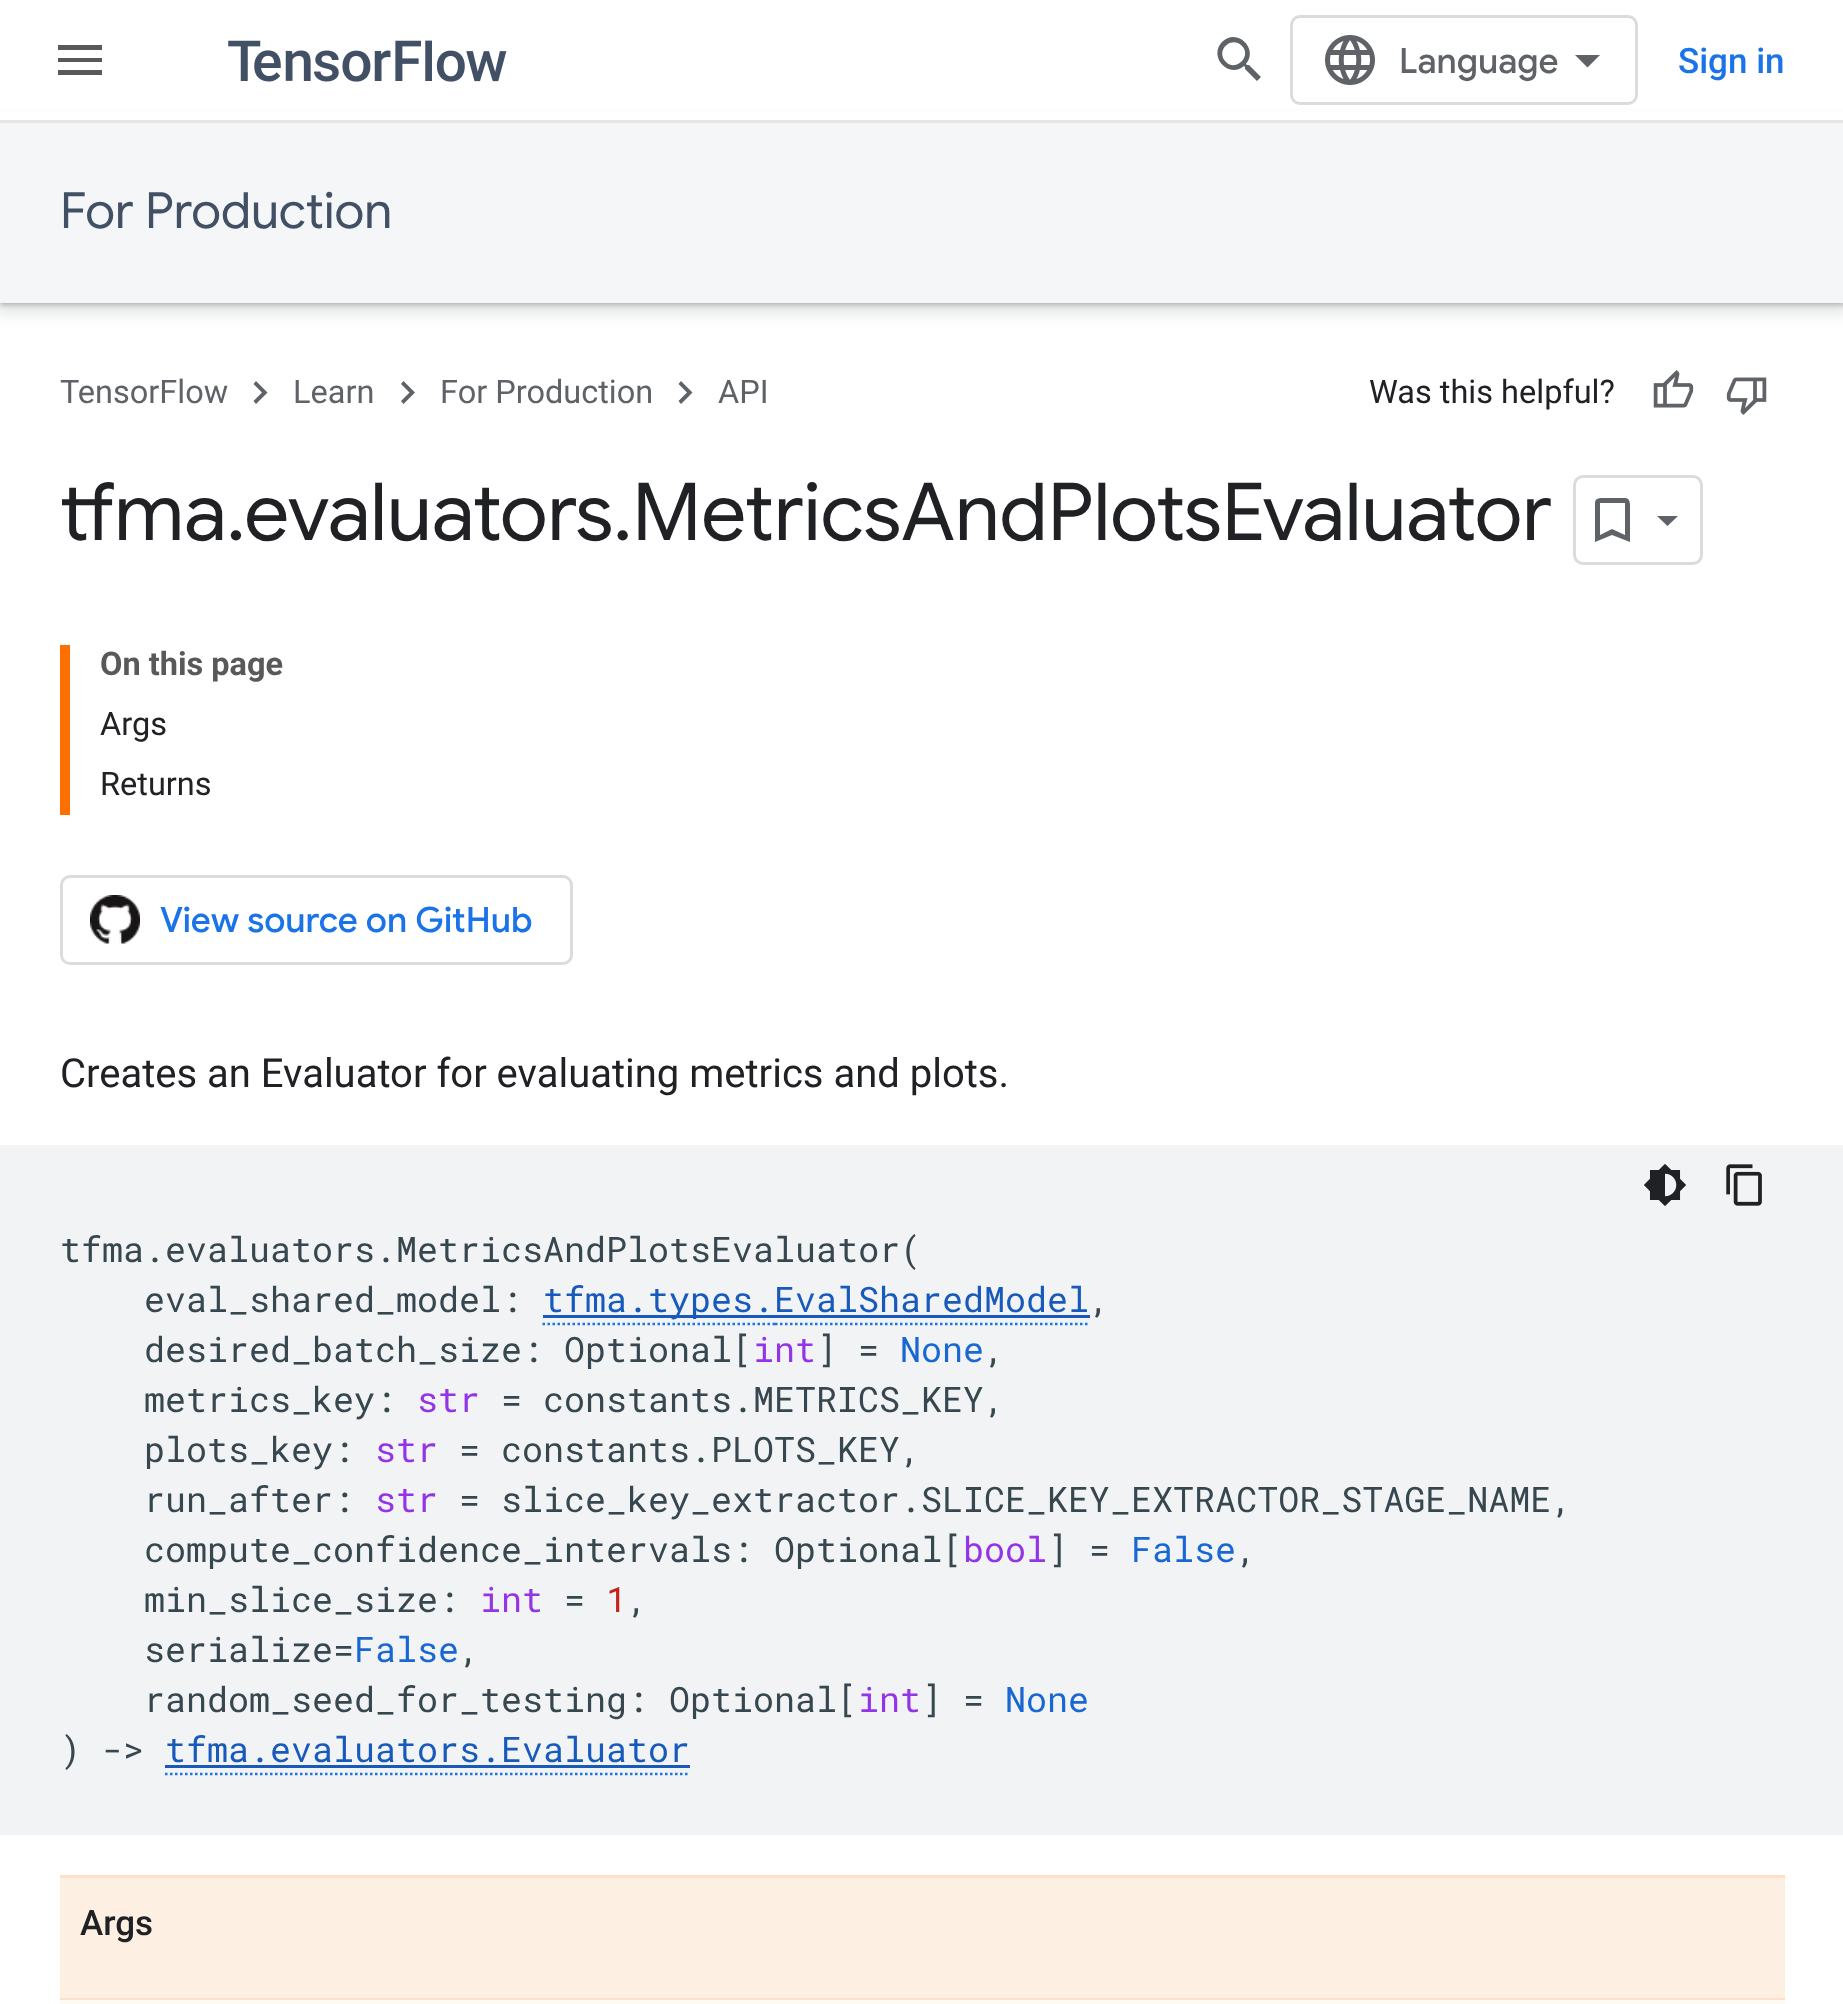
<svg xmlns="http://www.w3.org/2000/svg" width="1843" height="2004">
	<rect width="100%" height="100%" fill="#FFFFFF" />
	<rect x="-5" y="123" width="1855" height="190" fill="#3C4043" fill-opacity="0.15" filter="blur(7.5px)" />
	<rect x="0" y="125" width="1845" height="180" fill="#3C4043" fill-opacity="0.3" filter="blur(2.5px)" />
	<rect x="0" y="113" width="1843" height="7" fill="#FFFFFF" />
	<rect x="0" y="120" width="1843" height="3" fill="#E6E6E6" />
	<path d="M58 45H102V50H58ZM58 62V58H102V62ZM58 75V70H102V75Z" fill="#595959" />
	<image x="228" y="40" width="279" height="42" href="assets/img1.png" />
	<path d="M1226 62C1236 72 1252 56 1242 46C1231 35 1215 51 1226 62ZM1249 65L1261 77L1257 81L1245 69V67L1244 66C1229 79 1208 57 1222 42C1237 27 1259 49 1246 64L1247 65Z" fill="#5F6368" />
	<rect x="1291.5" y="16.5" width="345" height="87" rx="8.5" fill="none" stroke="#DADCE0" stroke-width="3" />
	<image x="1325" y="35" width="50" height="50" href="assets/img2.png" />
	<text x="1399" y="73" font-family="Google Sans" font-size="35" font-weight="500" fill="#5F6368">Language</text>
	<path d="M1587.5 67.5L1575 55H1600Z" fill="#5F6368" />
	<text x="1678" y="73" font-family="Roboto" font-size="35" font-weight="500" fill="#1A73E8">Sign in</text>
	<rect x="0" y="123" width="1843" height="180" fill="#F5F6F7" />
	<text x="60" y="228" font-family="Google Sans" font-size="50" fill="#425066">For Production</text>
	<text x="60" y="403" font-family="Roboto" font-size="32.5" fill="#5F6368">TensorFlow</text>
	<path d="M256 381L267.5 392.5L256 404L253.5 401L262 392.5L253.5 384Z" fill="#5F6368" />
	<text x="293" y="403" font-family="Roboto" font-size="32.5" fill="#5F6368">Learn</text>
	<path d="M403.5 381L415 392.5L403.5 404L401 401L409.5 392.5L401 384Z" fill="#5F6368" />
	<text x="440" y="403" font-family="Roboto" font-size="32.5" fill="#5F6368">For Production</text>
	<path d="M681 381L692.5 392.5L681 404L678.5 401L687 392.5L678.5 384Z" fill="#5F6368" />
	<text x="718" y="403" font-family="Roboto" font-size="32.5" fill="#5F6368">API</text>
	<text x="1369" y="403" font-family="Roboto" font-size="32.5" fill="#202124">Was this helpful?</text>
	<image x="1653" y="370" width="41" height="38" href="assets/img3.png" />
	<image x="1726" y="377" width="41" height="38" href="assets/img4.png" />
	<text x="60" y="540" font-family="Google Sans" font-size="80" fill="#202124">tfma.evaluators.MetricsAndPlotsEvaluator</text>
	<rect x="1574.5" y="476.5" width="127" height="87" rx="8.5" fill="none" stroke="#DADCE0" stroke-width="3" />
	<path d="M1625 535V503H1600V535L1612 529ZM1625 498C1631 498 1630 506 1630 509V542L1612 535L1595 542V509C1595 500 1594 498 1604 498Z" fill="#5F6368" />
	<path d="M1657 516H1678L1667.5 526Z" fill="#5F6368" />
	<rect x="60" y="645" width="10" height="170" fill="#FF6F00" />
	<text x="100" y="675" font-family="Roboto" font-size="32.5" font-weight="700" fill="#595959">On this page</text>
	<g font-family="Roboto" font-size="32.5" fill="#202124">
		<text x="100" y="735">Args</text>
		<text x="100" y="795">Returns</text>
	</g>
	<rect x="61.5" y="876.5" width="510" height="87" rx="8.5" fill="none" stroke="#DADCE0" stroke-width="3" />
	<image x="90" y="895" width="50" height="49" href="assets/img5.png" />
	<text x="160" y="932" font-family="Google Sans" font-size="35" font-weight="500" fill="#1A73E8">View source on GitHub</text>
	<text x="60" y="1087" font-family="Roboto" font-size="40" fill="#202124">Creates an Evaluator for evaluating metrics and plots.</text>
	<rect x="0" y="1145" width="1843" height="690" fill="#F1F3F4" />
	<image x="1644" y="1164" width="42" height="42" href="assets/img6.png" />
	<image x="1726" y="1164" width="36" height="42" href="assets/img7.png" />
	<g font-family="Roboto Mono" font-size="35" fill="#37474F">
		<text x="60" y="1262">tfma.evaluators.MetricsAndPlotsEvaluator(</text>
		<text x="144" y="1312">eval_shared_model:</text>
	</g>
	<rect x="543" y="1315" width="547" height="3" fill="#185ABC" />
	<text x="543" y="1312" font-family="Roboto Mono" font-size="35" fill="#185ABC">tfma.types.EvalSharedModel</text>
	<path d="M542.5 1324H627.5" fill="none" stroke="#1A73E8" stroke-width="2.5" stroke-dasharray="2.5 2.5" />
	<path d="M627.5 1324H647.5" fill="none" stroke="#1A73E8" stroke-width="2.5" stroke-dasharray="2.5 2.5" />
	<path d="M647.5 1324H752.5" fill="none" stroke="#1A73E8" stroke-width="2.5" stroke-dasharray="2.5 2.5" />
	<path d="M752.5 1324H775" fill="none" stroke="#1A73E8" stroke-width="2.5" stroke-dasharray="2.5 2.5" />
	<text x="1089" y="1312" font-family="Roboto Mono" font-size="35" fill="#37474F">,</text>
	<path d="M775 1324H1090" fill="none" stroke="#1A73E8" stroke-width="2.5" stroke-dasharray="2.5 2.5" />
	<text x="144" y="1362" font-family="Roboto Mono" font-size="35" fill="#37474F">desired_batch_size: Optional[</text>
	<text x="753" y="1362" font-family="Roboto Mono" font-size="35" fill="#9334E6">int</text>
	<text x="816" y="1362" font-family="Roboto Mono" font-size="35" fill="#37474F">] =</text>
	<text x="900" y="1362" font-family="Roboto Mono" font-size="35" fill="#1967D2">None</text>
	<g font-family="Roboto Mono" font-size="35" fill="#37474F">
		<text x="984" y="1362">,</text>
		<text x="144" y="1412">metrics_key:</text>
	</g>
	<text x="417" y="1412" font-family="Roboto Mono" font-size="35" fill="#9334E6">str</text>
	<g font-family="Roboto Mono" font-size="35" fill="#37474F">
		<text x="501" y="1412">= constants.METRICS_KEY,</text>
		<text x="144" y="1462">plots_key:</text>
	</g>
	<text x="375" y="1462" font-family="Roboto Mono" font-size="35" fill="#9334E6">str</text>
	<g font-family="Roboto Mono" font-size="35" fill="#37474F">
		<text x="459" y="1462">= constants.PLOTS_KEY,</text>
		<text x="144" y="1512">run_after:</text>
	</g>
	<text x="375" y="1512" font-family="Roboto Mono" font-size="35" fill="#9334E6">str</text>
	<g font-family="Roboto Mono" font-size="35" fill="#37474F">
		<text x="459" y="1512">= slice_key_extractor.SLICE_KEY_EXTRACTOR_STAGE_NAME,</text>
		<text x="144" y="1562">compute_confidence_intervals: Optional[</text>
	</g>
	<text x="963" y="1562" font-family="Roboto Mono" font-size="35" fill="#9334E6">bool</text>
	<text x="1047" y="1562" font-family="Roboto Mono" font-size="35" fill="#37474F">] =</text>
	<text x="1131" y="1562" font-family="Roboto Mono" font-size="35" fill="#1967D2">False</text>
	<g font-family="Roboto Mono" font-size="35" fill="#37474F">
		<text x="1236" y="1562">,</text>
		<text x="144" y="1612">min_slice_size:</text>
	</g>
	<text x="480" y="1612" font-family="Roboto Mono" font-size="35" fill="#9334E6">int</text>
	<text x="564" y="1612" font-family="Roboto Mono" font-size="35" fill="#37474F">=</text>
	<text x="606" y="1612" font-family="Roboto Mono" font-size="35" fill="#C5221F">1</text>
	<g font-family="Roboto Mono" font-size="35" fill="#37474F">
		<text x="627" y="1612">,</text>
		<text x="144" y="1662">serialize=</text>
	</g>
	<text x="354" y="1662" font-family="Roboto Mono" font-size="35" fill="#1967D2">False</text>
	<g font-family="Roboto Mono" font-size="35" fill="#37474F">
		<text x="459" y="1662">,</text>
		<text x="144" y="1712">random_seed_for_testing: Optional[</text>
	</g>
	<text x="858" y="1712" font-family="Roboto Mono" font-size="35" fill="#9334E6">int</text>
	<text x="921" y="1712" font-family="Roboto Mono" font-size="35" fill="#37474F">] =</text>
	<text x="1005" y="1712" font-family="Roboto Mono" font-size="35" fill="#1967D2">None</text>
	<text x="60" y="1762" font-family="Roboto Mono" font-size="35" fill="#37474F">) -&gt;</text>
	<text x="165" y="1762" font-family="Roboto Mono" font-size="35" fill="#185ABC">tfma.evaluators.Evaluator</text>
	<path d="M165 1774H250" fill="none" stroke="#1A73E8" stroke-width="2.5" stroke-dasharray="2.5 2.5" />
	<path d="M250 1774H270" fill="none" stroke="#1A73E8" stroke-width="2.5" stroke-dasharray="2.5 2.5" />
	<path d="M270 1774H480" fill="none" stroke="#1A73E8" stroke-width="2.5" stroke-dasharray="2.5 2.5" />
	<path d="M480 1774H500" fill="none" stroke="#1A73E8" stroke-width="2.5" stroke-dasharray="2.5 2.5" />
	<path d="M500 1774H690" fill="none" stroke="#1A73E8" stroke-width="2.5" stroke-dasharray="2.5 2.5" />
	<rect x="165" y="1765" width="525" height="3" fill="#185ABC" />
	<rect x="60" y="1878" width="1725" height="120" fill="#FEEFE3" />
	<rect x="60" y="1875" width="1725" height="3" fill="#FEDFC8" />
	<rect x="60" y="1998" width="1725" height="2" fill="#FEDFC8" />
	<text x="80" y="1935" font-family="Roboto" font-size="35" font-weight="500" fill="#202124">Args</text>
	<rect x="60" y="2000" width="1725" height="4" fill="#FFF9F4" />
</svg>
